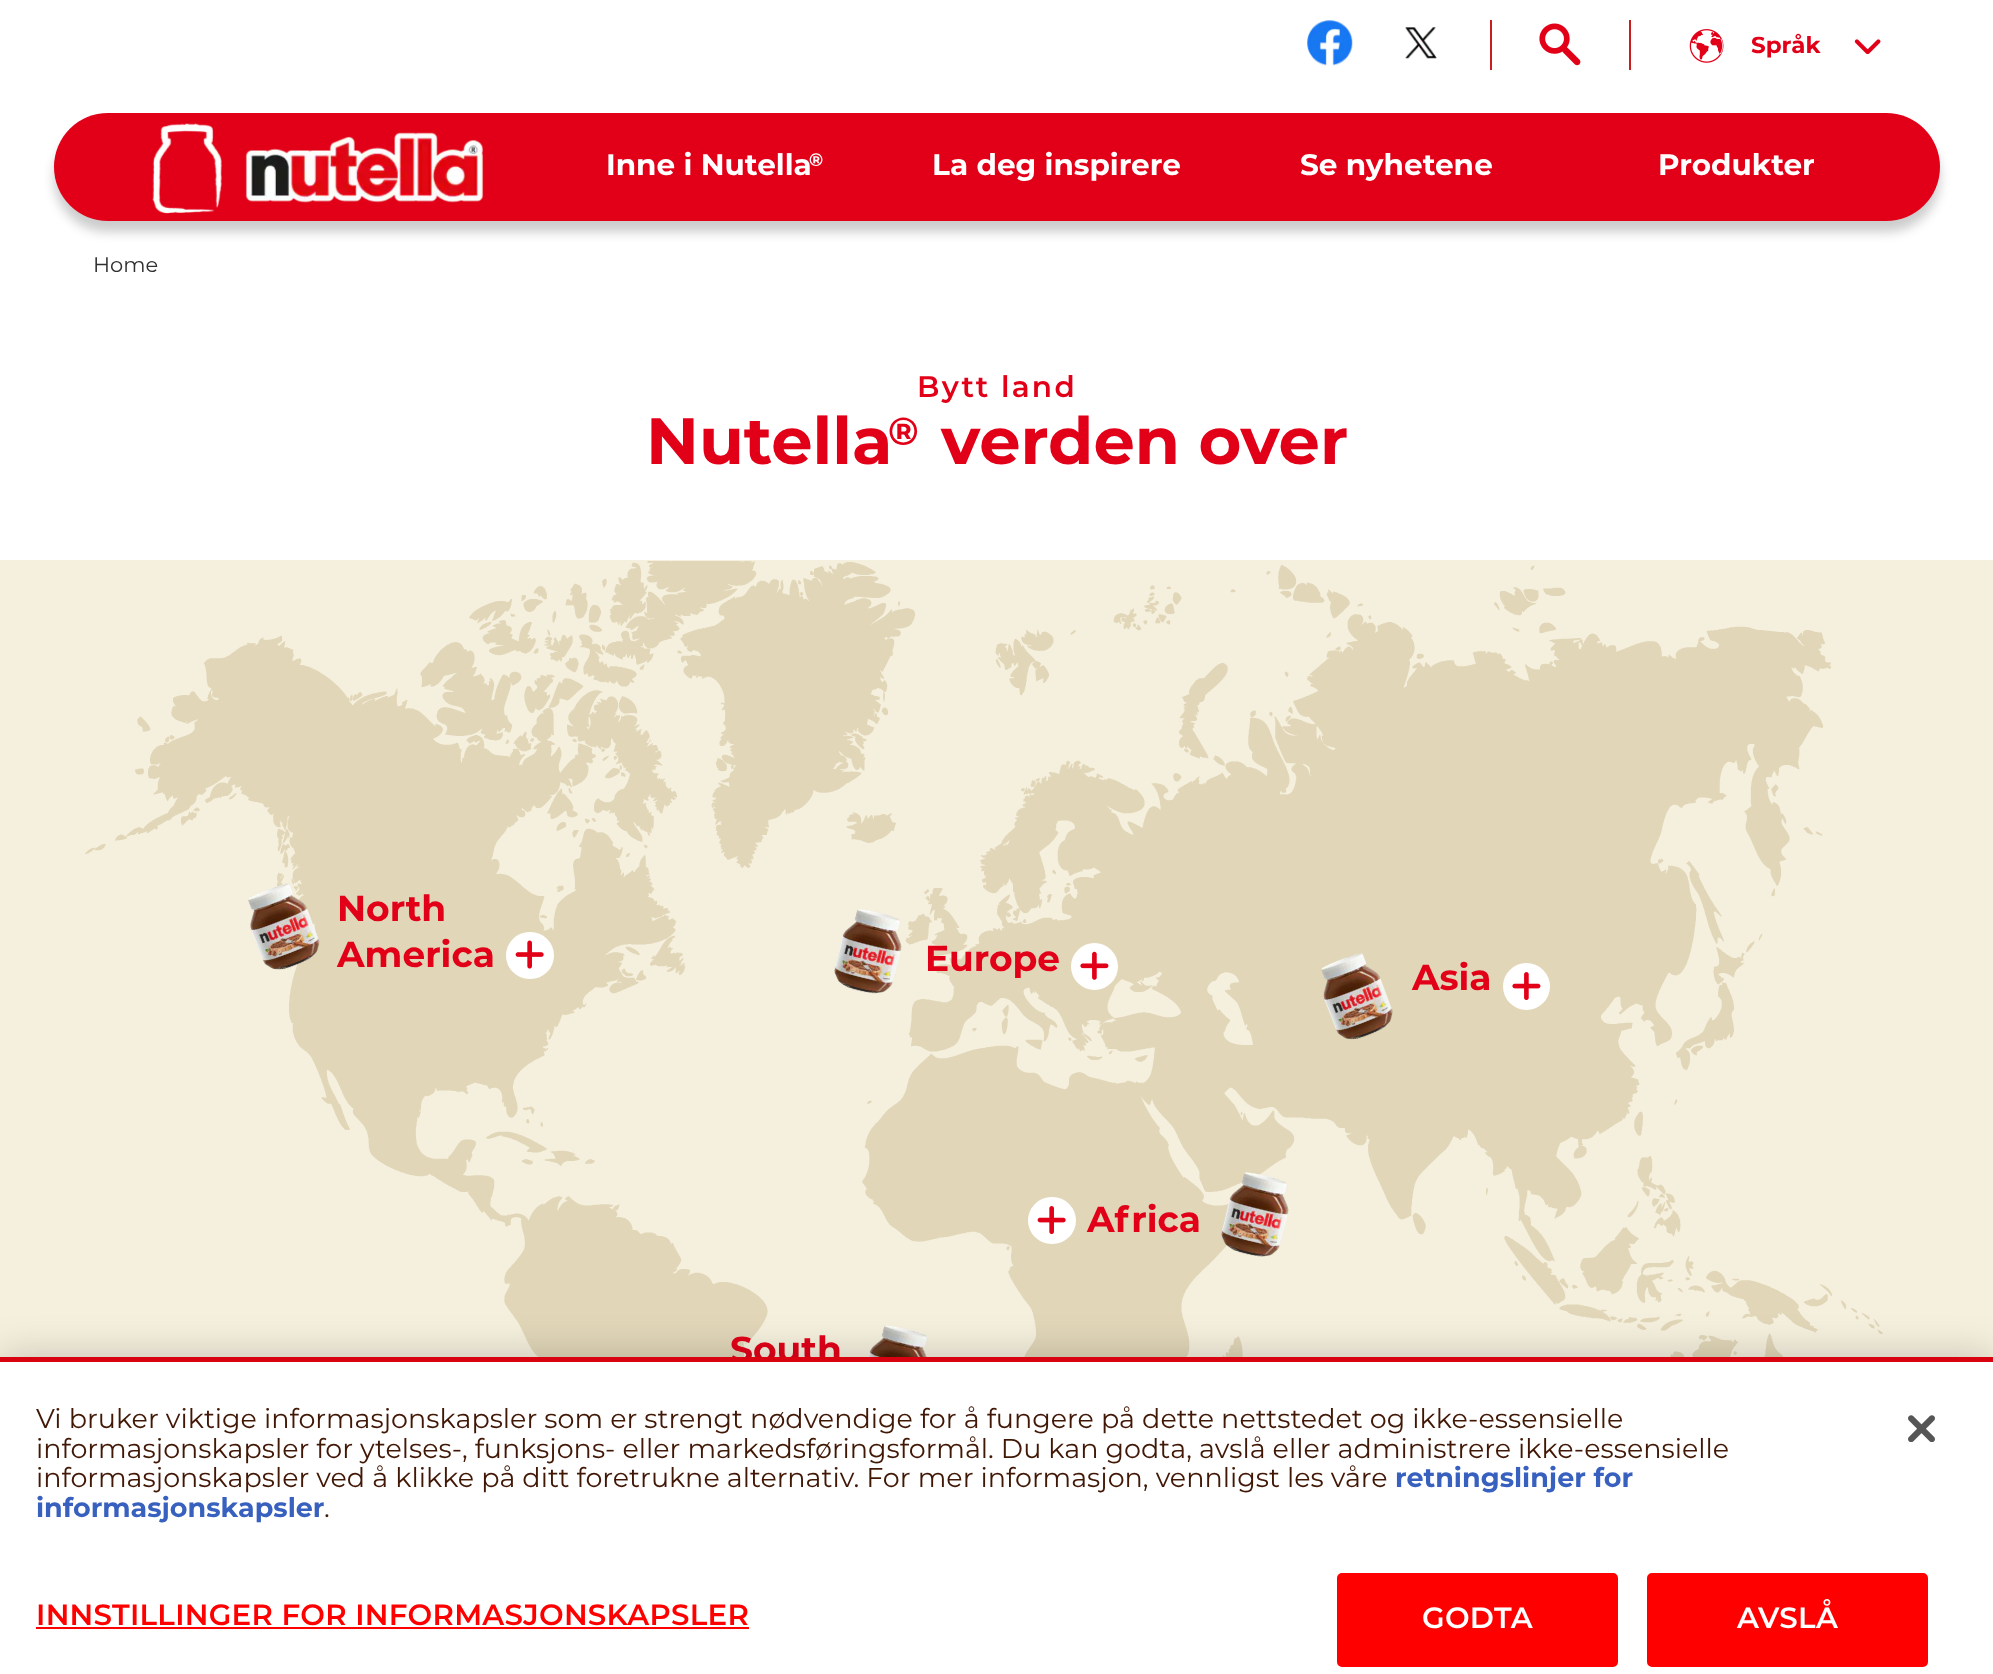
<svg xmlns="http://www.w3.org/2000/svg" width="1993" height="1674">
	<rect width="100%" height="100%" fill="#FFFFFF" />
	<rect x="54" y="124" width="1886" height="108" rx="54" fill="#000000" fill-opacity="0.2" filter="blur(5.5px)" />
	<rect x="54" y="113" width="1886" height="108" rx="54" fill="#E20019" />
	<image x="1307" y="20" width="46" height="46" href="assets/img1.png" />
	<image x="1405" y="27" width="32" height="32" href="assets/img2.png" />
	<rect x="1490" y="20" width="2" height="50" fill="#CA1D1D" />
	<image x="1539" y="23" width="42" height="43" href="assets/img3.png" />
	<rect x="1629" y="20" width="2" height="50" fill="#CA1D1D" />
	<image x="1689" y="29" width="35" height="34" href="assets/img4.png" />
	<text x="1751" y="53" font-family="Montserrat" font-size="23" font-weight="700" fill="#E20019">Språk</text>
	<image x="1854" y="39" width="27" height="16" href="assets/img5.png" />
	<image x="152" y="123" width="332" height="91" href="assets/img6.png" />
	<text x="606" y="175" font-family="Montserrat" font-size="29.5" font-weight="700" fill="#FFFFFF">Inne i Nutella</text>
	<text x="809" y="166" font-family="Montserrat" font-size="18" font-weight="700" fill="#FFFFFF">®</text>
	<g font-family="Montserrat" font-size="29.5" font-weight="700" fill="#FFFFFF">
		<text x="932" y="175">La deg inspirere</text>
		<text x="1300" y="175">Se nyhetene</text>
		<text x="1658" y="175">Produkter</text>
	</g>
	<text x="93" y="272" font-family="Montserrat" font-size="21" fill="#303030">Home</text>
	<text x="917" y="397" font-family="Montserrat" font-size="29.5" font-weight="600" letter-spacing="2.25" fill="#E20019">Bytt land</text>
	<text x="646" y="464" font-family="Montserrat" font-size="65.5" font-weight="700" fill="#E20019">Nutella</text>
	<text x="888" y="445" font-family="Montserrat" font-size="39" font-weight="700" fill="#E20019">®</text>
	<text x="941" y="464" font-family="Montserrat" font-size="65.5" font-weight="700" fill="#E20019">verden over</text>
	<rect x="0" y="560" width="1993" height="797" fill="#F5EFDD" />
	<image x="85" y="561" width="1798" height="796" href="assets/img7.png" />
	<image x="248" y="883" width="72" height="87" href="assets/img8.png" />
	<g font-family="Montserrat" font-size="36" font-weight="700" fill="#E20019">
		<text x="337" y="921">North</text>
		<text x="337" y="967">America</text>
	</g>
	<rect x="506" y="932" width="48" height="47" rx="23.5" fill="#FFFFFF" />
	<image x="515" y="940" width="29" height="29" href="assets/img9.png" />
	<image x="834" y="909" width="68" height="85" href="assets/img10.png" />
	<text x="925" y="971" font-family="Montserrat" font-size="36" font-weight="700" fill="#E20019">Europe</text>
	<circle cx="1094.5" cy="966.5" r="23.5" fill="#FFFFFF" />
	<image x="1080" y="951" width="29" height="29" href="assets/img11.png" />
	<image x="1321" y="953" width="72" height="87" href="assets/img12.png" />
	<text x="1412" y="990" font-family="Montserrat" font-size="36" font-weight="700" fill="#E20019">Asia</text>
	<circle cx="1526.5" cy="986.5" r="23.5" fill="#FFFFFF" />
	<image x="1512" y="972" width="29" height="29" href="assets/img13.png" />
	<rect x="1028" y="1197" width="48" height="47" rx="23.5" fill="#FFFFFF" />
	<image x="1037" y="1206" width="29" height="29" href="assets/img14.png" />
	<text x="1087" y="1232" font-family="Montserrat" font-size="36" font-weight="700" fill="#E20019">Africa</text>
	<image x="1221" y="1172" width="68" height="85" href="assets/img15.png" />
	<text x="730" y="1362" font-family="Montserrat" font-size="36" font-weight="700" fill="#E20019">South</text>
	<image x="868" y="1325" width="60" height="32" href="assets/img16.png" />
	<rect x="0" y="1357" width="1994" height="317" fill="#000000" fill-opacity="0.2" filter="blur(20px)" />
	<rect x="0" y="1362" width="1993" height="312" fill="#FFFFFF" />
	<rect x="0" y="1357" width="1993" height="5" fill="#D90210" />
	<g font-family="Montserrat" font-size="27" fill="#411705">
		<text x="36" y="1428">Vi bruker viktige informasjonskapsler som er strengt nødvendige for å fungere på dette nettstedet og ikke-essensielle</text>
		<text x="36" y="1458">informasjonskapsler for ytelses-, funksjons- eller markedsføringsformål. Du kan godta, avslå eller administrere ikke-essensielle</text>
		<text x="36" y="1487">informasjonskapsler ved å klikke på ditt foretrukne alternativ. For mer informasjon, vennligst les våre</text>
	</g>
	<g font-family="Montserrat" font-size="27" font-weight="700" fill="#3860BE">
		<text x="1395" y="1487">retningslinjer for</text>
		<text x="36" y="1517">informasjonskapsler</text>
	</g>
	<text x="324" y="1517" font-family="Montserrat" font-size="27" fill="#411705">.</text>
	<text x="36" y="1625" font-family="Montserrat" font-size="29.25" font-weight="600" letter-spacing="0.3" fill="#FF0000">INNSTILLINGER FOR INFORMASJONSKAPSLER</text>
	<rect x="36" y="1627" width="713" height="2" fill="#FF0000" />
	<rect x="1338" y="1574" width="279" height="92" rx="4" fill="#FF0000" stroke="#FF0000" stroke-width="2" />
	<text x="1422" y="1628" font-family="Montserrat" font-size="29.25" font-weight="600" letter-spacing="0.3" fill="#FFFFFF">GODTA</text>
	<rect x="1648" y="1574" width="279" height="92" rx="4" fill="#FF0000" stroke="#FF0000" stroke-width="2" />
	<text x="1737" y="1628" font-family="Montserrat" font-size="29.25" font-weight="600" letter-spacing="0.3" fill="#FFFFFF">AVSLÅ</text>
	<image x="1908" y="1415" width="27" height="27" href="assets/img17.png" />
</svg>
